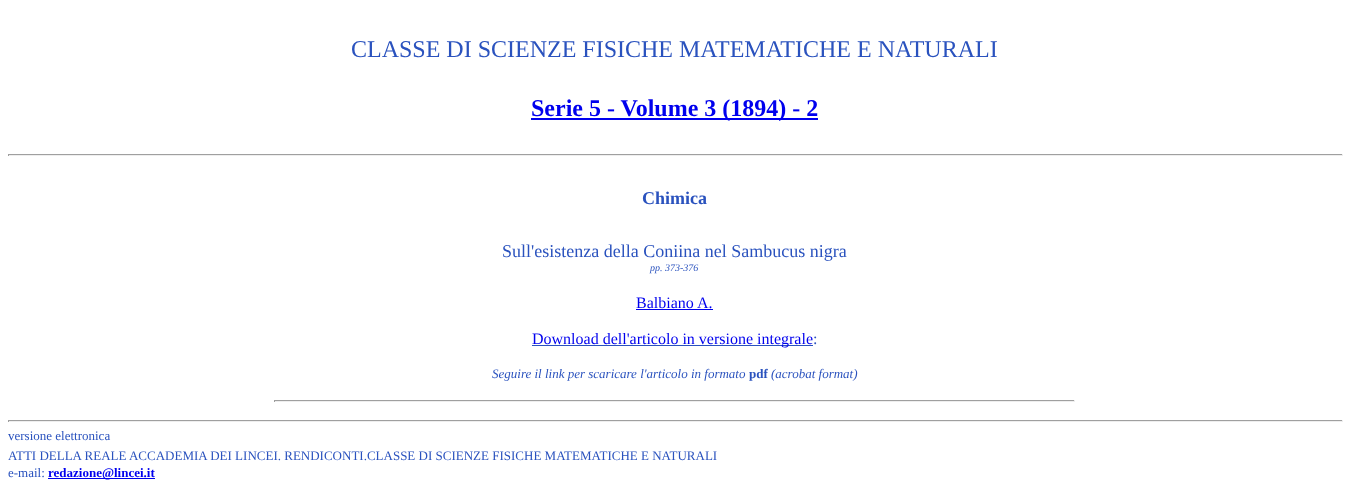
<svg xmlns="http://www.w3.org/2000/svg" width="1349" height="499">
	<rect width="100%" height="100%" fill="#FFFFFF" />
	<text x="351" y="57" font-family="Liberation Serif" font-size="24" fill="#2A52BE">CLASSE DI SCIENZE FISICHE MATEMATICHE E NATURALI</text>
	<rect x="531" y="118" width="287" height="2" fill="#0000EE" />
	<text x="531" y="116" font-family="Liberation Serif" font-size="24" font-weight="700" fill="#0000EE">Serie 5 - Volume 3 (1894) - 2</text>
	<rect x="8" y="154" width="1335" height="1" fill="#9F9F9F" />
	<rect x="1342" y="154" width="1" height="2" fill="#EEEEEE" />
	<rect x="8" y="155" width="1335" height="1" fill="#EEEEEE" />
	<rect x="8" y="154" width="1" height="2" fill="#9F9F9F" />
	<text x="642" y="204" font-family="Liberation Serif" font-size="18" font-weight="700" fill="#2A52BE">Chimica</text>
	<text x="502" y="257" font-family="Liberation Serif" font-size="18" fill="#2A52BE">Sull'esistenza della Coniina nel Sambucus nigra</text>
	<text x="650" y="271" font-family="Liberation Serif" font-size="10" font-style="italic" fill="#2A52BE">pp. 373-376</text>
	<g font-family="Liberation Serif" font-size="16" fill="#0000EE">
		<text x="636" y="308">Balbiano</text>
		<text x="697" y="308">A.</text>
	</g>
	<rect x="636" y="309" width="77" height="1" fill="#0000EE" />
	<rect x="532" y="345" width="281" height="1" fill="#2A52BE" />
	<text x="532" y="344" font-family="Liberation Serif" font-size="16" fill="#0000EE">Download dell'articolo in versione integrale</text>
	<text x="813" y="344" font-family="Liberation Serif" font-size="16" fill="#2A52BE">:</text>
	<text x="492" y="378" font-family="Liberation Serif" font-size="13" font-style="italic" fill="#2A52BE">Seguire il link per scaricare l'articolo in formato</text>
	<text x="749" y="378" font-family="Liberation Serif" font-size="13" font-weight="700" fill="#2A52BE">pdf</text>
	<text x="771" y="378" font-family="Liberation Serif" font-size="13" font-style="italic" fill="#2A52BE">(acrobat format)</text>
	<rect x="274" y="400" width="801" height="1" fill="#9F9F9F" />
	<rect x="1074" y="400" width="1" height="2" fill="#EEEEEE" />
	<rect x="274" y="401" width="801" height="1" fill="#EEEEEE" />
	<rect x="274" y="400" width="1" height="2" fill="#9F9F9F" />
	<rect x="8" y="420" width="1335" height="1" fill="#9F9F9F" />
	<rect x="1342" y="420" width="1" height="2" fill="#EEEEEE" />
	<rect x="8" y="421" width="1335" height="1" fill="#EEEEEE" />
	<rect x="8" y="420" width="1" height="2" fill="#9F9F9F" />
	<g font-family="Liberation Serif" font-size="13" fill="#2A52BE">
		<text x="8" y="440">versione elettronica</text>
		<text x="8" y="460">ATTI DELLA REALE ACCADEMIA DEI LINCEI. RENDICONTI.CLASSE DI SCIENZE FISICHE MATEMATICHE E NATURALI</text>
		<text x="8" y="477">e-mail:</text>
	</g>
	<rect x="48" y="478" width="107" height="1" fill="#0000EE" />
	<text x="48" y="477" font-family="Liberation Serif" font-size="13" font-weight="700" fill="#0000EE">redazione@lincei.it</text>
</svg>
